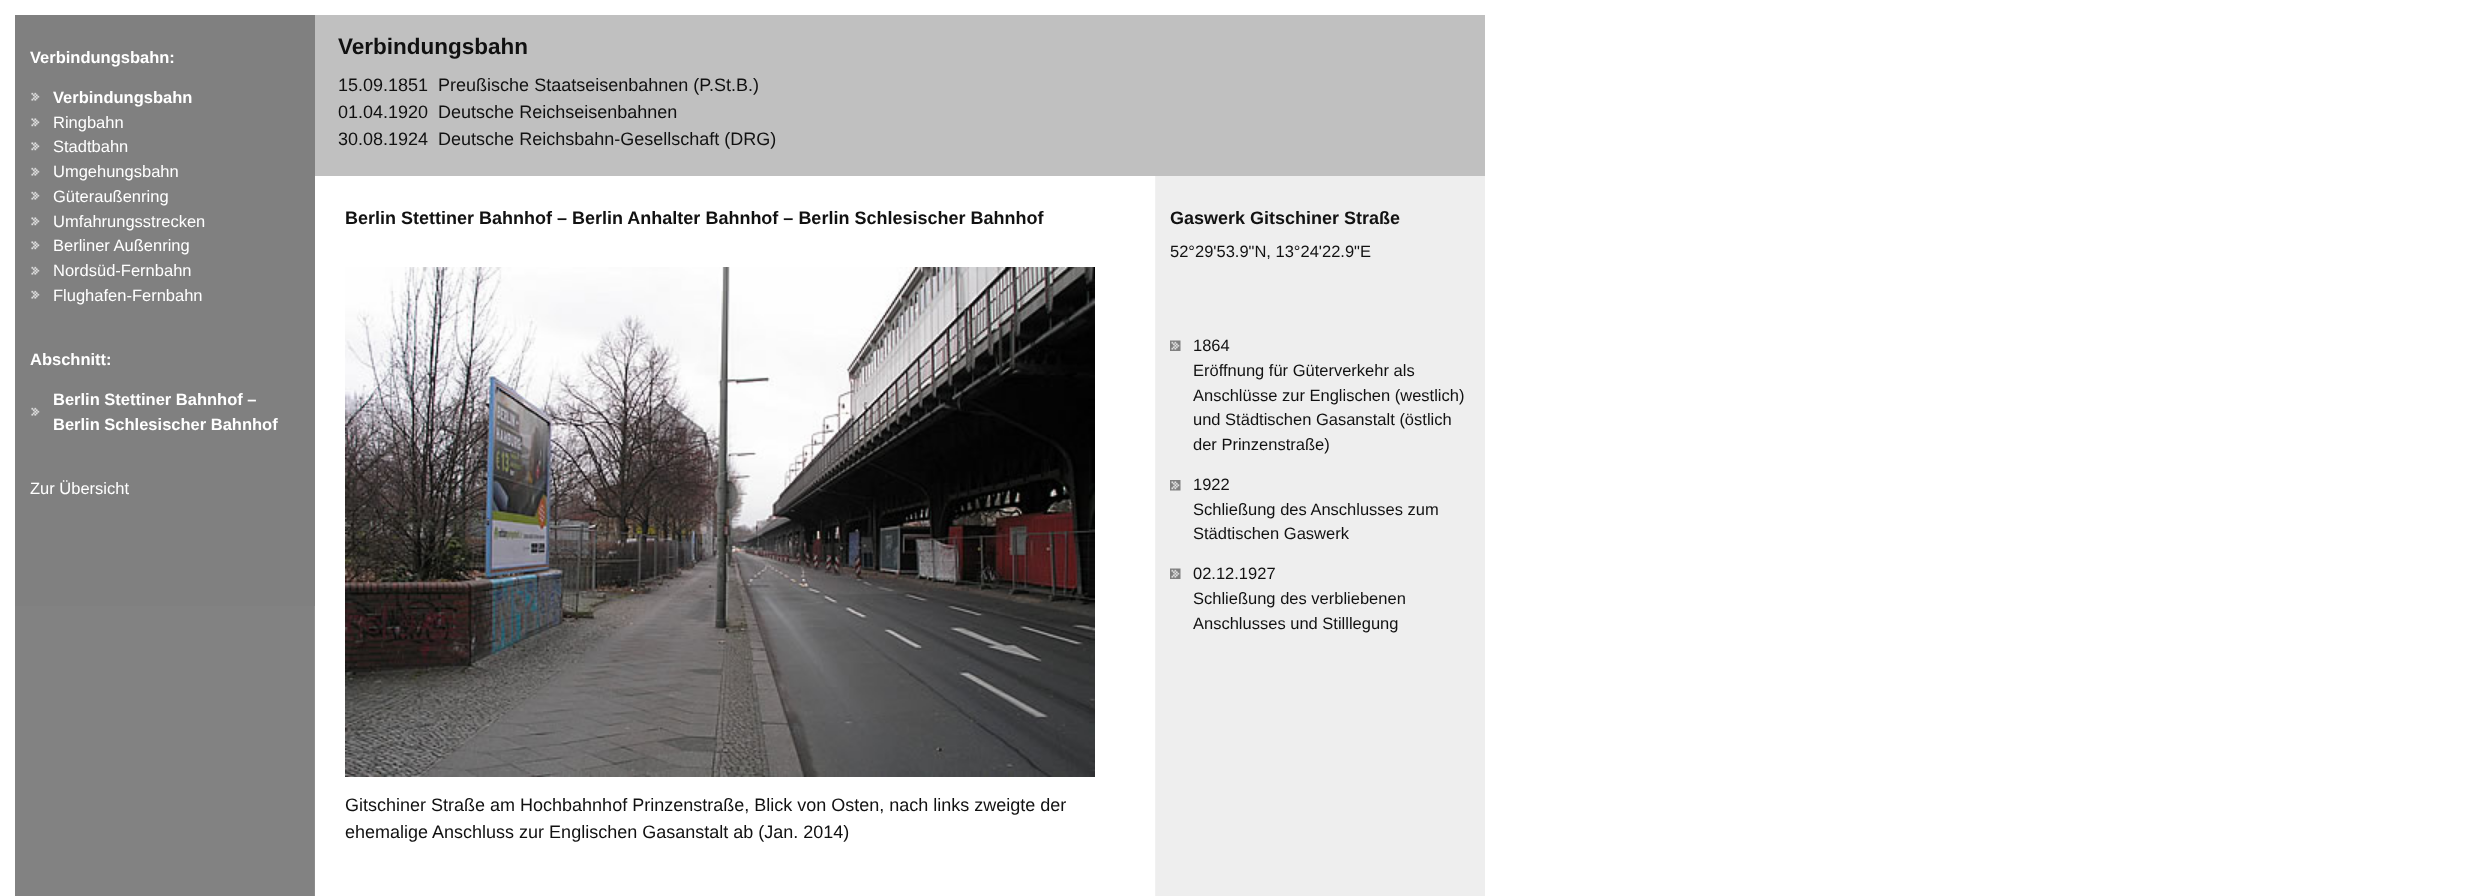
<svg xmlns="http://www.w3.org/2000/svg" width="2490" height="896">
	<rect width="100%" height="100%" fill="#FFFFFF" />
	<image x="15" y="606" width="300" height="290" href="assets/img1.png" />
	<rect x="15" y="15" width="300" height="591" fill="#808080" />
	<text x="30" y="63" font-family="Liberation Sans" font-size="16.5" font-weight="700" fill="#FFFFFF">Verbindungsbahn:</text>
	<image x="31" y="92" width="9" height="9" href="assets/img2.png" />
	<text x="53" y="103" font-family="Liberation Sans" font-size="16.5" font-weight="700" fill="#FFFFFF">Verbindungsbahn</text>
	<image x="31" y="118" width="9" height="9" href="assets/img3.png" />
	<text x="53" y="128" font-family="Liberation Sans" font-size="16.5" fill="#FFFFFF">Ringbahn</text>
	<image x="31" y="142" width="9" height="9" href="assets/img3.png" />
	<text x="53" y="152" font-family="Liberation Sans" font-size="16.5" fill="#FFFFFF">Stadtbahn</text>
	<image x="31" y="167" width="9" height="9" href="assets/img2.png" />
	<text x="53" y="177" font-family="Liberation Sans" font-size="16.5" fill="#FFFFFF">Umgehungsbahn</text>
	<image x="31" y="191" width="9" height="9" href="assets/img2.png" />
	<text x="53" y="202" font-family="Liberation Sans" font-size="16.5" fill="#FFFFFF">Güteraußenring</text>
	<image x="31" y="217" width="9" height="9" href="assets/img3.png" />
	<text x="53" y="227" font-family="Liberation Sans" font-size="16.5" fill="#FFFFFF">Umfahrungsstrecken</text>
	<image x="31" y="241" width="9" height="9" href="assets/img3.png" />
	<text x="53" y="251" font-family="Liberation Sans" font-size="16.5" fill="#FFFFFF">Berliner Außenring</text>
	<image x="31" y="266" width="9" height="9" href="assets/img2.png" />
	<text x="53" y="276" font-family="Liberation Sans" font-size="16.5" fill="#FFFFFF">Nordsüd-Fernbahn</text>
	<image x="31" y="290" width="9" height="9" href="assets/img2.png" />
	<text x="53" y="301" font-family="Liberation Sans" font-size="16.5" fill="#FFFFFF">Flughafen-Fernbahn</text>
	<text x="30" y="365" font-family="Liberation Sans" font-size="16.5" font-weight="700" fill="#FFFFFF">Abschnitt:</text>
	<image x="31" y="407" width="9" height="9" href="assets/img2.png" />
	<g font-family="Liberation Sans" font-size="16.5" font-weight="700" fill="#FFFFFF">
		<text x="53" y="405">Berlin Stettiner Bahnhof –</text>
		<text x="53" y="430">Berlin Schlesischer Bahnhof</text>
	</g>
	<text x="30" y="494" font-family="Liberation Sans" font-size="16.5" fill="#FFFFFF">Zur Übersicht</text>
	<image x="1155" y="176" width="330" height="720" href="assets/img4.png" />
	<rect x="315" y="15" width="1170" height="161" fill="#C0C0C0" />
	<text x="338" y="54" font-family="Liberation Sans" font-size="22.5" font-weight="700" fill="#111111">Verbindungsbahn</text>
	<g font-family="Liberation Sans" font-size="18" fill="#111111">
		<text x="338" y="91" xml:space="preserve">15.09.1851  Preußische Staatseisenbahnen (P.St.B.)</text>
		<text x="338" y="118" xml:space="preserve">01.04.1920  Deutsche Reichseisenbahnen</text>
		<text x="338" y="145" xml:space="preserve">30.08.1924  Deutsche Reichsbahn-Gesellschaft (DRG)</text>
	</g>
	<text x="345" y="224" font-family="Liberation Sans" font-size="18" font-weight="700" fill="#111111">Berlin Stettiner Bahnhof – Berlin Anhalter Bahnhof – Berlin Schlesischer Bahnhof</text>
	<image x="345" y="267" width="750" height="510" href="assets/img5.png" />
	<g font-family="Liberation Sans" font-size="18" fill="#111111">
		<text x="345" y="811">Gitschiner Straße am Hochbahnhof Prinzenstraße, Blick von Osten, nach links zweigte der</text>
		<text x="345" y="838">ehemalige Anschluss zur Englischen Gasanstalt ab (Jan. 2014)</text>
	</g>
	<text x="1170" y="224" font-family="Liberation Sans" font-size="18" font-weight="700" fill="#111111">Gaswerk Gitschiner Straße</text>
	<text x="1170" y="257" font-family="Liberation Sans" font-size="16.5" fill="#111111">52°29'53.9"N, 13°24'22.9"E</text>
	<image x="1170" y="340" width="11" height="11" href="assets/img6.png" />
	<g font-family="Liberation Sans" font-size="16.5" fill="#111111">
		<text x="1193" y="351">1864</text>
		<text x="1193" y="376">Eröffnung für Güterverkehr als</text>
		<text x="1193" y="401">Anschlüsse zur Englischen (westlich)</text>
		<text x="1193" y="425">und Städtischen Gasanstalt (östlich</text>
		<text x="1193" y="450">der Prinzenstraße)</text>
	</g>
	<image x="1170" y="480" width="11" height="11" href="assets/img7.png" />
	<g font-family="Liberation Sans" font-size="16.5" fill="#111111">
		<text x="1193" y="490">1922</text>
		<text x="1193" y="515">Schließung des Anschlusses zum</text>
		<text x="1193" y="539">Städtischen Gaswerk</text>
	</g>
	<image x="1170" y="568" width="11" height="11" href="assets/img6.png" />
	<g font-family="Liberation Sans" font-size="16.5" fill="#111111">
		<text x="1193" y="579">02.12.1927</text>
		<text x="1193" y="604">Schließung des verbliebenen</text>
		<text x="1193" y="629">Anschlusses und Stilllegung</text>
	</g>
</svg>
